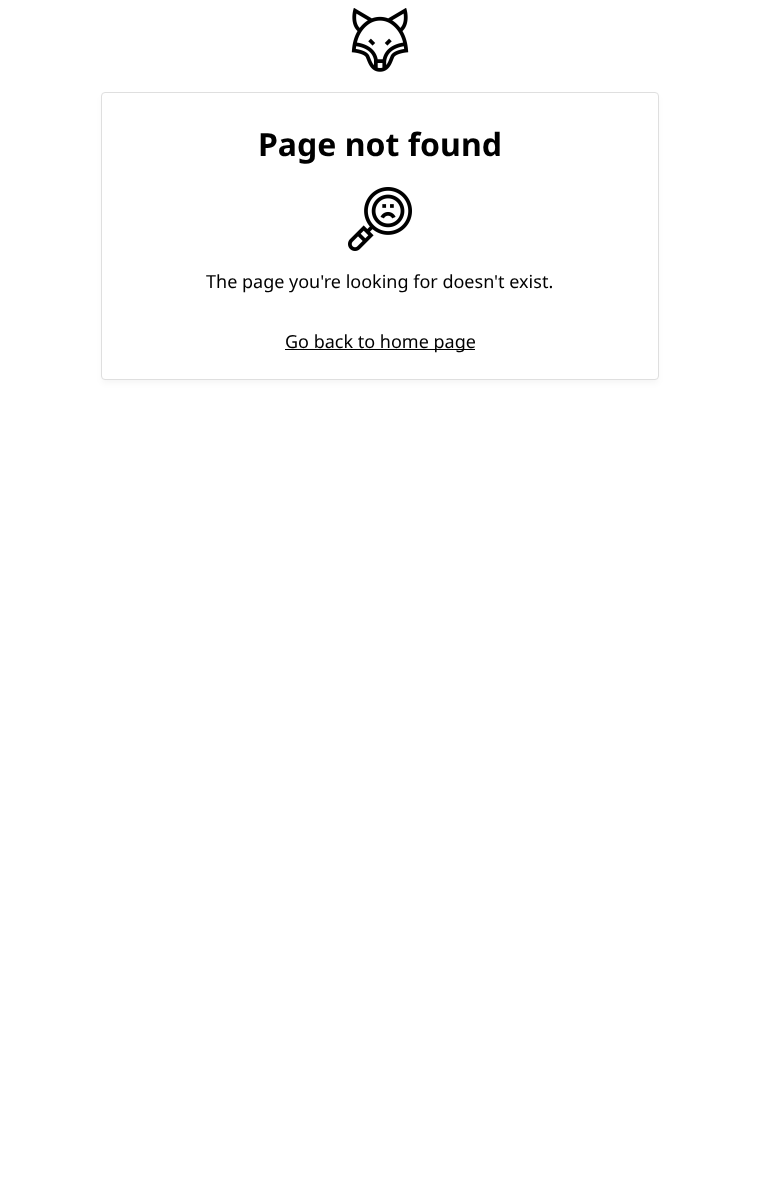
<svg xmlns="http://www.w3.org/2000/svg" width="760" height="1202">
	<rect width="100%" height="100%" fill="#FFFFFF" />
	<image x="351" y="8" width="58" height="64" href="assets/img1.png" />
	<rect x="102" y="97" width="556" height="286" rx="3" fill="#000000" fill-opacity="0.04" filter="blur(3px)" />
	<rect x="101.5" y="92.5" width="557" height="287" rx="3.5" fill="#FFFFFF" stroke="#DFDFDF" />
	<text x="258" y="156" font-family="Noto Sans" font-size="32" font-weight="700" fill="#000000">Page not found</text>
	<image x="348" y="187" width="64" height="64" href="assets/img2.png" />
	<text x="206" y="288" font-family="Noto Sans" font-size="18" fill="#000000">The page you're looking for doesn't exist.</text>
	<rect x="285" y="349" width="190" height="1" fill="#000000" />
	<text x="285" y="348" font-family="Noto Sans" font-size="18" fill="#000000">Go back to home page</text>
</svg>
